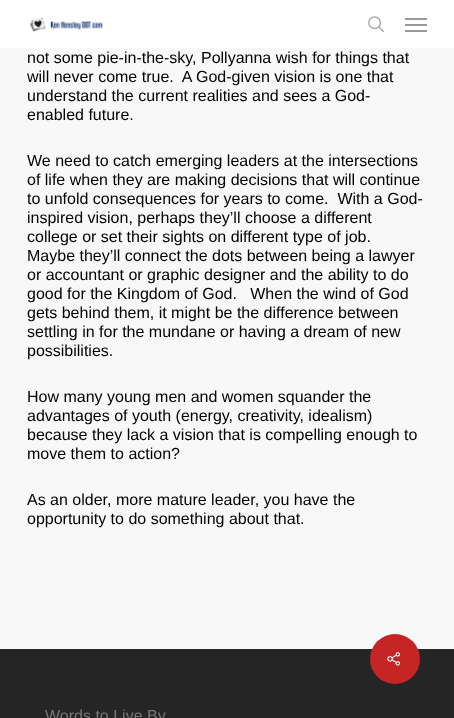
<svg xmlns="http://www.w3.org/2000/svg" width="454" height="718">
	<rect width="100%" height="100%" fill="#F8F8F8" />
	<rect x="0" y="0" width="454" height="48" fill="#FFFFFF" />
	<image x="29" y="17" width="74" height="15" href="assets/img1.png" />
	<image x="368" y="16" width="16" height="16" href="assets/img2.png" />
	<rect x="405" y="18" width="22" height="2" fill="#999999" />
	<rect x="405" y="30" width="22" height="2" fill="#999999" />
	<rect x="405" y="24" width="22" height="2" fill="#999999" />
	<g font-family="Liberation Sans" font-size="16" fill="#000000">
		<text x="27" y="63">not some pie-in-the-sky, Pollyanna wish for things that</text>
		<text x="27" y="82" xml:space="preserve">will never come true.  A God-given vision is one that</text>
		<text x="27" y="101">understand the current realities and sees a God-</text>
		<text x="27" y="120">enabled future.</text>
		<text x="27" y="166">We need to catch emerging leaders at the intersections</text>
		<text x="27" y="185">of life when they are making decisions that will continue</text>
		<text x="27" y="204" xml:space="preserve">to unfold consequences for years to come.  With a God-</text>
		<text x="27" y="223">inspired vision, perhaps they’ll choose a different</text>
		<text x="27" y="242">college or set their sights on different type of job.</text>
		<text x="27" y="261">Maybe they’ll connect the dots between being a lawyer</text>
		<text x="27" y="280">or accountant or graphic designer and the ability to do</text>
		<text x="27" y="299" xml:space="preserve">good for the Kingdom of God.   When the wind of God</text>
		<text x="27" y="318">gets behind them, it might be the difference between</text>
		<text x="27" y="337">settling in for the mundane or having a dream of new</text>
		<text x="27" y="356">possibilities.</text>
		<text x="27" y="402">How many young men and women squander the</text>
		<text x="27" y="421">advantages of youth (energy, creativity, idealism)</text>
		<text x="27" y="440">because they lack a vision that is compelling enough to</text>
		<text x="27" y="459">move them to action?</text>
		<text x="27" y="505">As an older, more mature leader, you have the</text>
		<text x="27" y="524">opportunity to do something about that.</text>
	</g>
	<rect x="0" y="649" width="454" height="69" fill="#252525" />
	<circle cx="395" cy="659" r="25" fill="#C62525" />
	<image x="387" y="652" width="13" height="14" href="assets/img3.png" />
	<text x="45" y="721" font-family="Liberation Sans" font-size="16" fill="#777777">Words to Live By</text>
</svg>
